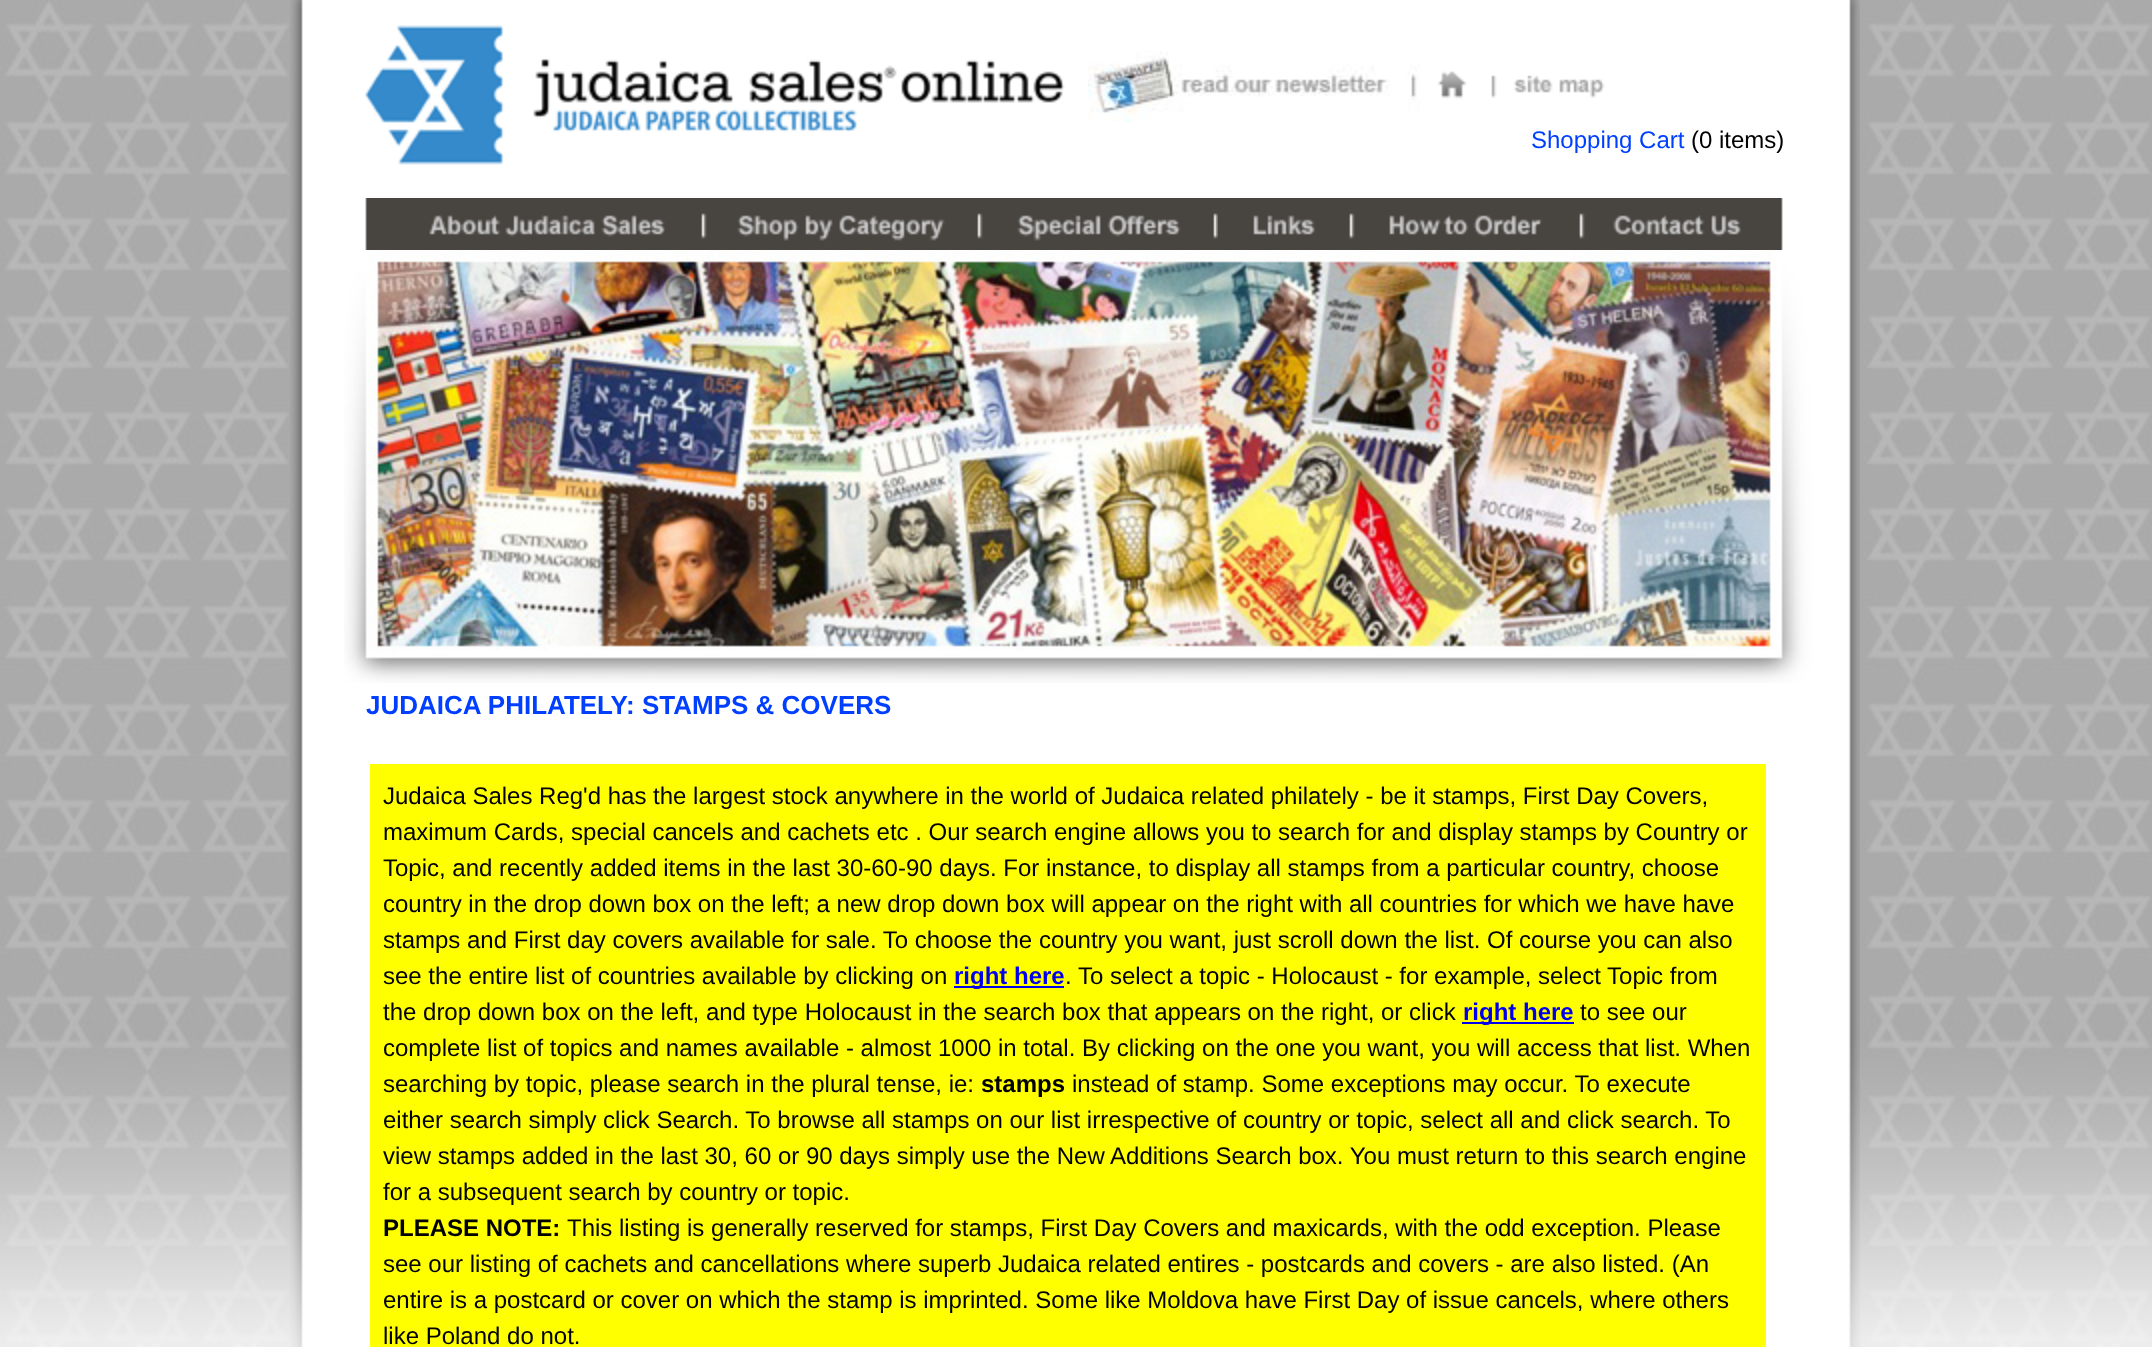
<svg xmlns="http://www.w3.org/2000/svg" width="2152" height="1347">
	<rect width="100%" height="100%" fill="#FFFFFF" />
	<image x="0" y="0" width="2152" height="1347" href="assets/img1.png" />
	<rect x="1065" y="0" width="23" height="198" fill="#FFFFFF" />
	<image x="290" y="0" width="775" height="198" href="assets/img2.png" />
	<rect x="1088" y="0" width="761" height="198" fill="#FFFFFF" />
	<image x="1088" y="51" width="332" height="71" href="assets/img3.png" />
	<image x="1437" y="71" width="30" height="28" href="assets/img4.png" />
	<image x="1491" y="75" width="114" height="24" href="assets/img5.png" />
	<image x="1849" y="0" width="11" height="122" href="assets/img6.png" />
	<image x="1849" y="122" width="11" height="76" href="assets/img7.png" />
	<text x="1531" y="148" font-family="Liberation Sans" font-size="24" fill="#003FFF">Shopping Cart</text>
	<text x="1691" y="148" font-family="Liberation Sans" font-size="24" fill="#000000">(0 items)</text>
	<rect x="303" y="198" width="33" height="1149" fill="#FFFFFF" />
	<image x="290" y="198" width="13" height="1149" href="assets/img8.png" />
	<rect x="665" y="198" width="914" height="52" fill="#484540" />
	<image x="336" y="198" width="329" height="52" href="assets/img9.png" />
	<image x="1579" y="198" width="221" height="52" href="assets/img10.png" />
	<image x="1800" y="198" width="60" height="1149" href="assets/img11.png" />
	<image x="701" y="213" width="244" height="28" href="assets/img12.png" />
	<image x="977" y="213" width="241" height="28" href="assets/img13.png" />
	<image x="1253" y="215" width="62" height="20" href="assets/img14.png" />
	<image x="1349" y="213" width="193" height="26" href="assets/img15.png" />
	<rect x="336" y="250" width="1464" height="1097" fill="#FFFFFF" />
	<image x="344" y="250" width="1456" height="433" href="assets/img16.png" />
	<text x="366" y="714" font-family="Liberation Sans" font-size="26" font-weight="700" fill="#003FFF">JUDAICA PHILATELY: STAMPS &amp; COVERS</text>
	<rect x="370" y="764" width="1396" height="583" fill="#FFFF00" />
	<g font-family="Liberation Sans" font-size="24" fill="#000000">
		<text x="383" y="804">Judaica Sales Reg'd has the largest stock anywhere in the world of Judaica related philately - be it stamps, First Day Covers,</text>
		<text x="383" y="840">maximum Cards, special cancels and cachets etc . Our search engine allows you to search for and display stamps by Country or</text>
		<text x="383" y="876">Topic, and recently added items in the last 30-60-90 days. For instance, to display all stamps from a particular country, choose</text>
		<text x="383" y="912">country in the drop down box on the left; a new drop down box will appear on the right with all countries for which we have have</text>
		<text x="383" y="948">stamps and First day covers available for sale. To choose the country you want, just scroll down the list. Of course you can also</text>
		<text x="383" y="984">see the entire list of countries available by clicking on</text>
	</g>
	<rect x="954" y="986" width="110" height="2" fill="#0000EE" />
	<text x="954" y="984" font-family="Liberation Sans" font-size="24" font-weight="700" fill="#0000EE">right here</text>
	<g font-family="Liberation Sans" font-size="24" fill="#000000">
		<text x="1065" y="984">. To select a topic - Holocaust - for example, select Topic from</text>
		<text x="383" y="1020">the drop down box on the left, and type Holocaust in the search box that appears on the right, or click</text>
	</g>
	<rect x="1462" y="1022" width="112" height="2" fill="#0000EE" />
	<text x="1463" y="1020" font-family="Liberation Sans" font-size="24" font-weight="700" fill="#0000EE">right here</text>
	<g font-family="Liberation Sans" font-size="24" fill="#000000">
		<text x="1580" y="1020">to see our</text>
		<text x="383" y="1056">complete list of topics and names available - almost 1000 in total. By clicking on the one you want, you will access that list. When</text>
		<text x="383" y="1092">searching by topic, please search in the plural tense, ie:</text>
	</g>
	<text x="981" y="1092" font-family="Liberation Sans" font-size="24" font-weight="700" fill="#000000">stamps</text>
	<g font-family="Liberation Sans" font-size="24" fill="#000000">
		<text x="1072" y="1092">instead of stamp. Some exceptions may occur. To execute</text>
		<text x="383" y="1128">either search simply click Search. To browse all stamps on our list irrespective of country or topic, select all and click search. To</text>
		<text x="383" y="1164">view stamps added in the last 30, 60 or 90 days simply use the New Additions Search box. You must return to this search engine</text>
		<text x="383" y="1200">for a subsequent search by country or topic.</text>
	</g>
	<text x="383" y="1236" font-family="Liberation Sans" font-size="24" font-weight="700" fill="#000000">PLEASE NOTE:</text>
	<g font-family="Liberation Sans" font-size="24" fill="#000000">
		<text x="567" y="1236">This listing is generally reserved for stamps, First Day Covers and maxicards, with the odd exception. Please</text>
		<text x="383" y="1272">see our listing of cachets and cancellations where superb Judaica related entires - postcards and covers - are also listed. (An</text>
		<text x="383" y="1308">entire is a postcard or cover on which the stamp is imprinted. Some like Moldova have First Day of issue cancels, where others</text>
		<text x="383" y="1344">like Poland do not.</text>
	</g>
</svg>
